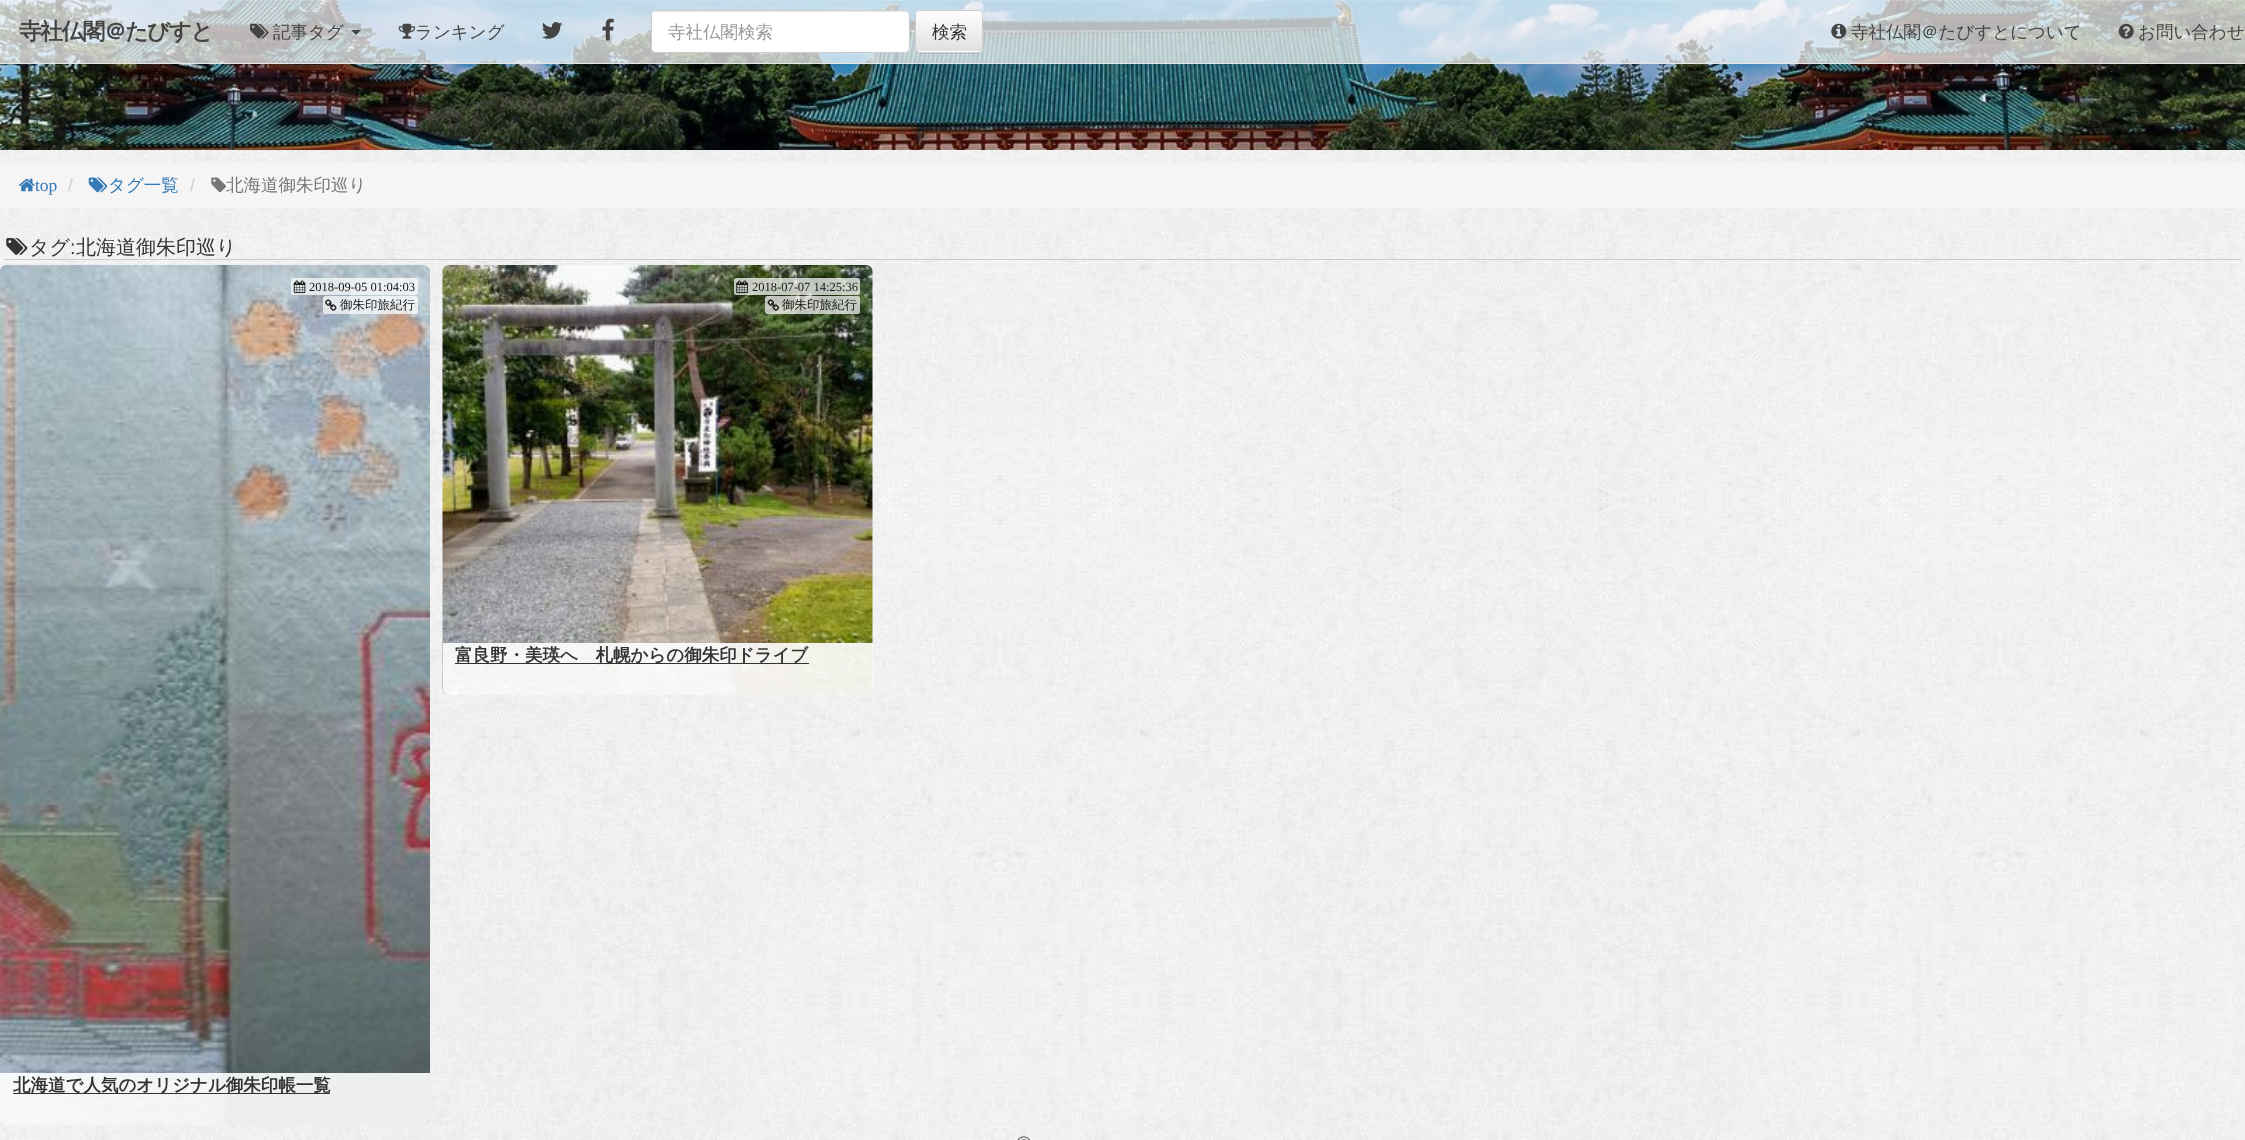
<svg xmlns="http://www.w3.org/2000/svg" width="2245" height="1140">
	<defs>
		<clipPath id="clip1"><rect x="915" y="10" width="68" height="43" rx="5" /></clipPath>
		<linearGradient id="g1" gradientUnits="userSpaceOnUse" x1="949" y1="11" x2="949" y2="51"><stop offset="0" stop-color="#FFFFFF" /><stop offset="1" stop-color="#E0E0E0" /></linearGradient>
	</defs>
	<rect width="100%" height="100%" fill="#FFFFFF" />
	<image x="0" y="150" width="2245" height="990" href="assets/img1.png" />
	<image x="0" y="0" width="2245" height="150" href="assets/img2.png" />
	<rect x="0" y="0" width="2245" height="63" fill="#FFFFFF" fill-opacity="0.7" />
	<rect x="0" y="0" width="2245" height="1" fill="#FFFFFF" fill-opacity="0.15" />
	<rect x="0" y="63" width="2245" height="1" fill="#E7E7E7" />
	<text x="19" y="39" font-family="WenQuanYi Zen Hei" font-size="22.5" font-weight="700" letter-spacing="-1.25" fill="#444444">寺社仏閣＠たびすと</text>
	<image x="250" y="23" width="19" height="16" href="assets/img3.png" />
	<text x="273" y="38" font-family="WenQuanYi Zen Hei" font-size="17.5" font-weight="500" fill="#444444">記事タグ</text>
	<path d="M351 30H361L356 35Z" fill="#444444" />
	<image x="398" y="23" width="17" height="16" href="assets/img4.png" />
	<text x="415" y="38" font-family="WenQuanYi Zen Hei" font-size="17.5" font-weight="500" fill="#444444">ランキング</text>
	<image x="542" y="22" width="21" height="17" href="assets/img5.png" />
	<image x="602" y="18" width="12" height="23" href="assets/img6.png" />
	<rect x="651" y="10" width="259" height="43" rx="5" fill="#FFFFFF" />
	<path d="M656 12H906L908 14L909 16V15C909 13 907 11 905 11H657C656 11 654 12 654 13Z" fill="#ECECEC" />
	<rect x="651.5" y="10.5" width="258" height="42" rx="4.5" fill="none" stroke="#CCCCCC" />
	<text x="668" y="38" font-family="WenQuanYi Zen Hei" font-size="17.5" font-weight="500" fill="#999999">寺社仏閣検索</text>
	<rect x="915" y="11" width="68" height="43" rx="5" fill="#000000" fill-opacity="0.07" filter="blur(0.5px)" />
	<rect x="915" y="10" width="68" height="43" rx="5" fill="#FFFFFF" />
	<g clip-path="url(#clip1)">
		<rect x="915" y="11" width="68" height="40" fill="url(#g1)" />
	</g>
	<rect x="915.5" y="10.5" width="67" height="42" rx="4.5" fill="none" stroke="#CCCCCC" />
	<text x="932" y="38" font-family="WenQuanYi Zen Hei" font-size="17.5" font-weight="500" fill="#333333">検索</text>
	<image x="1831" y="23" width="16" height="16" href="assets/img7.png" />
	<text x="1851" y="38" font-family="WenQuanYi Zen Hei" font-size="17.5" font-weight="500" fill="#444444">寺社仏閣＠たびすとについて</text>
	<image x="2118" y="23" width="16" height="16" href="assets/img8.png" />
	<text x="2138" y="38" font-family="WenQuanYi Zen Hei" font-size="17.5" font-weight="500" fill="#444444">お問い合わせ</text>
	<rect x="0" y="163" width="2245" height="45" rx="5" fill="#F5F5F5" />
	<image x="19" y="178" width="16" height="14" href="assets/img9.png" />
	<text x="35" y="191" font-family="Liberation Serif" font-size="17.5" fill="#337AB7">top</text>
	<text x="68" y="191" font-family="Liberation Sans" font-size="17.5" fill="#CCCCCC">/</text>
	<image x="88" y="177" width="20" height="16" href="assets/img10.png" />
	<text x="108" y="191" font-family="WenQuanYi Zen Hei" font-size="17.5" font-weight="500" fill="#337AB7">タグ一覧</text>
	<text x="190" y="191" font-family="Liberation Sans" font-size="17.5" fill="#CCCCCC">/</text>
	<image x="211" y="177" width="15" height="16" href="assets/img11.png" />
	<text x="226" y="191" font-family="WenQuanYi Zen Hei" font-size="17.5" font-weight="500" fill="#777777">北海道御朱印巡り</text>
	<rect x="0" y="264" width="2245" height="1" fill="#EEEEEE" />
	<rect x="4" y="259" width="2237" height="1" fill="#CCCCCC" />
	<image x="6" y="238" width="22" height="17" href="assets/img12.png" />
	<text x="29" y="254" font-family="WenQuanYi Zen Hei" font-size="20" font-weight="500" fill="#333333">タグ</text>
	<text x="70" y="254" font-family="Liberation Sans" font-size="20" fill="#333333">:</text>
	<text x="76" y="254" font-family="WenQuanYi Zen Hei" font-size="20" font-weight="500" fill="#333333">北海道御朱印巡り</text>
	<image x="0" y="265" width="430" height="860" href="assets/img13.png" />
	<rect x="291" y="278" width="127" height="17" rx="2.5" fill="#FFFFFF" fill-opacity="0.72" />
	<image x="293" y="280" width="13" height="14" href="assets/img14.png" />
	<text x="309" y="291" font-family="Liberation Serif" font-size="12.5" fill="#171818">2018-09-05 01:04:03</text>
	<rect x="323" y="296" width="95" height="18" rx="2.5" fill="#FFFFFF" fill-opacity="0.72" />
	<image x="325" y="299" width="12" height="12" href="assets/img15.png" />
	<text x="340" y="309" font-family="WenQuanYi Zen Hei" font-size="12.5" font-weight="500" fill="#171818">御朱印旅紀行</text>
	<path d="M0 1073H430V1119C430 1122.5 427.5 1125 424 1125H6C2.5 1125 0 1122.5 0 1119Z" fill="#FFFFFF" fill-opacity="0.9" />
	<rect x="13" y="1093" width="317" height="1" fill="#333333" />
	<text x="13" y="1091" font-family="WenQuanYi Zen Hei" font-size="17.5" font-weight="700" fill="#333333">北海道で人気のオリジナル御朱印帳一覧</text>
	<image x="442" y="265" width="431" height="430" href="assets/img16.png" />
	<rect x="734" y="278" width="126" height="17" rx="2.5" fill="#FFFFFF" fill-opacity="0.72" />
	<image x="736" y="280" width="12" height="14" href="assets/img17.png" />
	<text x="752" y="291" font-family="Liberation Serif" font-size="12.5" fill="#171818">2018-07-07 14:25:36</text>
	<rect x="765" y="296" width="95" height="18" rx="2.5" fill="#FFFFFF" fill-opacity="0.72" />
	<image x="767" y="299" width="12" height="12" href="assets/img18.png" />
	<text x="782" y="309" font-family="WenQuanYi Zen Hei" font-size="12.5" font-weight="500" fill="#171818">御朱印旅紀行</text>
	<path d="M443 643H873V689C873 692.5 870.5 695 867 695H449C445.5 695 443 692.5 443 689Z" fill="#FFFFFF" fill-opacity="0.9" />
	<rect x="455" y="663" width="354" height="1" fill="#333333" />
	<text x="455" y="661" font-family="WenQuanYi Zen Hei" font-size="17.5" font-weight="700" fill="#333333">富良野・美瑛へ　札幌からの御朱印ドライブ</text>
	<image x="1017" y="1136" width="14" height="4" href="assets/img19.png" />
</svg>
